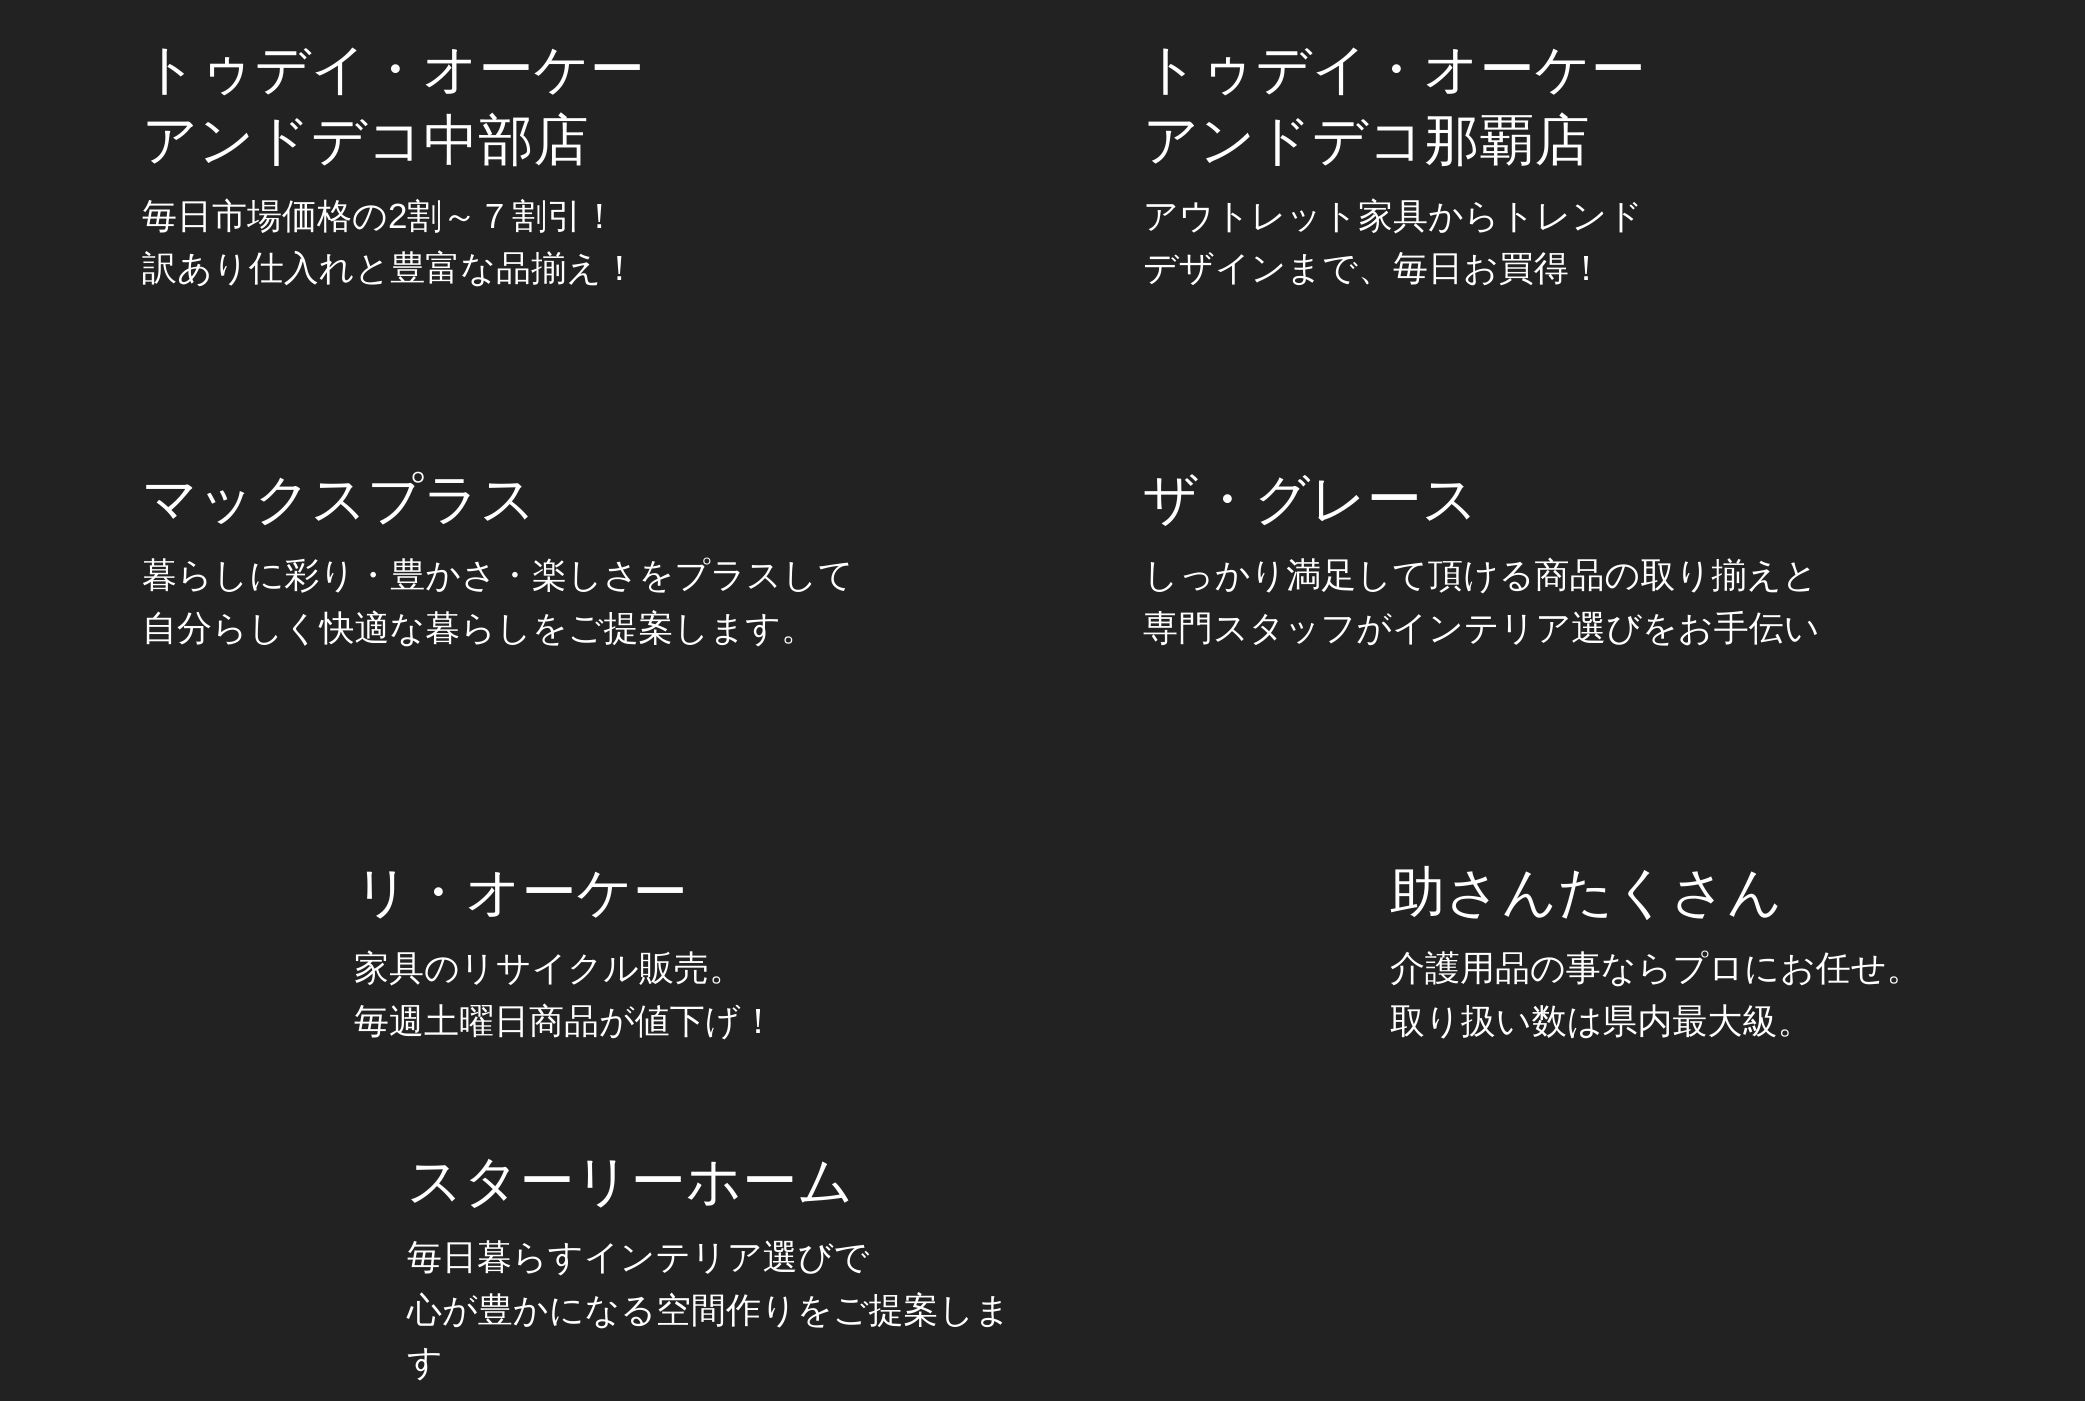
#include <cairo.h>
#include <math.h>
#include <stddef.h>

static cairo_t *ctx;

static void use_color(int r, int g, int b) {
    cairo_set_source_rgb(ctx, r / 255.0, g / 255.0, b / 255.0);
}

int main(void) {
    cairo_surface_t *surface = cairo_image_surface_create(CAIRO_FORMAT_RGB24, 2085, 1401);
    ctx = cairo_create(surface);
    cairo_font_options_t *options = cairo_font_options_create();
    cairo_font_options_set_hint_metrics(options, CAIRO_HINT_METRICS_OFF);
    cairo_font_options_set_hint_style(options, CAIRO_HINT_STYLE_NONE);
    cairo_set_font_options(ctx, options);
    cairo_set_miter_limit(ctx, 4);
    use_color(34, 34, 34);
    cairo_paint(ctx);
    cairo_select_font_face(ctx, "WenQuanYi Zen Hei Medium", CAIRO_FONT_SLANT_NORMAL, CAIRO_FONT_WEIGHT_NORMAL);
    cairo_set_font_size(ctx, 55);
    use_color(255, 255, 255);
    cairo_move_to(ctx, 142, 88);
    cairo_show_text(ctx, "トゥデイ・オーケー");
    cairo_move_to(ctx, 142, 159);
    cairo_show_text(ctx, "アンドデコ中部店");
    cairo_set_font_size(ctx, 35);
    cairo_move_to(ctx, 142, 228);
    cairo_show_text(ctx, "毎日市場価格の");
    cairo_select_font_face(ctx, "Liberation Sans", CAIRO_FONT_SLANT_NORMAL, CAIRO_FONT_WEIGHT_NORMAL);
    cairo_move_to(ctx, 388, 228);
    cairo_show_text(ctx, "2");
    cairo_select_font_face(ctx, "WenQuanYi Zen Hei Medium", CAIRO_FONT_SLANT_NORMAL, CAIRO_FONT_WEIGHT_NORMAL);
    cairo_move_to(ctx, 407, 228);
    cairo_show_text(ctx, "割～７割引！");
    cairo_move_to(ctx, 142, 280);
    cairo_show_text(ctx, "訳あり仕入れと豊富な品揃え！");
    cairo_set_font_size(ctx, 55);
    cairo_move_to(ctx, 1143, 88);
    cairo_show_text(ctx, "トゥデイ・オーケー");
    cairo_move_to(ctx, 1143, 159);
    cairo_show_text(ctx, "アンドデコ那覇店");
    cairo_set_font_size(ctx, 35);
    cairo_move_to(ctx, 1143, 228);
    cairo_show_text(ctx, "アウトレット家具からトレンド");
    cairo_move_to(ctx, 1143, 280);
    cairo_show_text(ctx, "デザインまで、毎日お買得！");
    cairo_set_font_size(ctx, 55);
    cairo_move_to(ctx, 142, 518);
    cairo_show_text(ctx, "マックスプラス");
    cairo_set_font_size(ctx, 35);
    cairo_move_to(ctx, 142, 587);
    cairo_show_text(ctx, "暮らしに彩り・豊かさ・楽しさをプラスして");
    cairo_move_to(ctx, 142, 640);
    cairo_show_text(ctx, "自分らしく快適な暮らしをご提案します。");
    cairo_set_font_size(ctx, 55);
    cairo_move_to(ctx, 1143, 518);
    cairo_show_text(ctx, "ザ・グレース");
    cairo_set_font_size(ctx, 35);
    cairo_move_to(ctx, 1143, 587);
    cairo_show_text(ctx, "しっかり満足して頂ける商品の取り揃えと");
    cairo_move_to(ctx, 1143, 640);
    cairo_show_text(ctx, "専門スタッフがインテリア選びをお手伝い");
    cairo_set_font_size(ctx, 55);
    cairo_move_to(ctx, 354, 911);
    cairo_show_text(ctx, "リ・オーケー");
    cairo_set_font_size(ctx, 35);
    cairo_move_to(ctx, 354, 980);
    cairo_show_text(ctx, "家具のリサイクル販売。");
    cairo_move_to(ctx, 354, 1033);
    cairo_show_text(ctx, "毎週土曜日商品が値下げ！");
    cairo_set_font_size(ctx, 55);
    cairo_move_to(ctx, 1390, 911);
    cairo_show_text(ctx, "助さんたくさん");
    cairo_set_font_size(ctx, 35);
    cairo_move_to(ctx, 1390, 980);
    cairo_show_text(ctx, "介護用品の事ならプロにお任せ。");
    cairo_move_to(ctx, 1390, 1033);
    cairo_show_text(ctx, "取り扱い数は県内最大級。");
    cairo_set_font_size(ctx, 55);
    cairo_move_to(ctx, 407, 1200);
    cairo_show_text(ctx, "スターリーホーム");
    cairo_set_font_size(ctx, 35);
    cairo_move_to(ctx, 407, 1269);
    cairo_show_text(ctx, "毎日暮らすインテリア選びで");
    cairo_move_to(ctx, 407, 1322);
    cairo_show_text(ctx, "心が豊かになる空間作りをご提案しま");
    cairo_move_to(ctx, 407, 1374);
    cairo_show_text(ctx, "す");
    cairo_surface_write_to_png(surface, "result.png");
    cairo_font_options_destroy(options);
    cairo_destroy(ctx);
    cairo_surface_destroy(surface);
    return 0;
}
